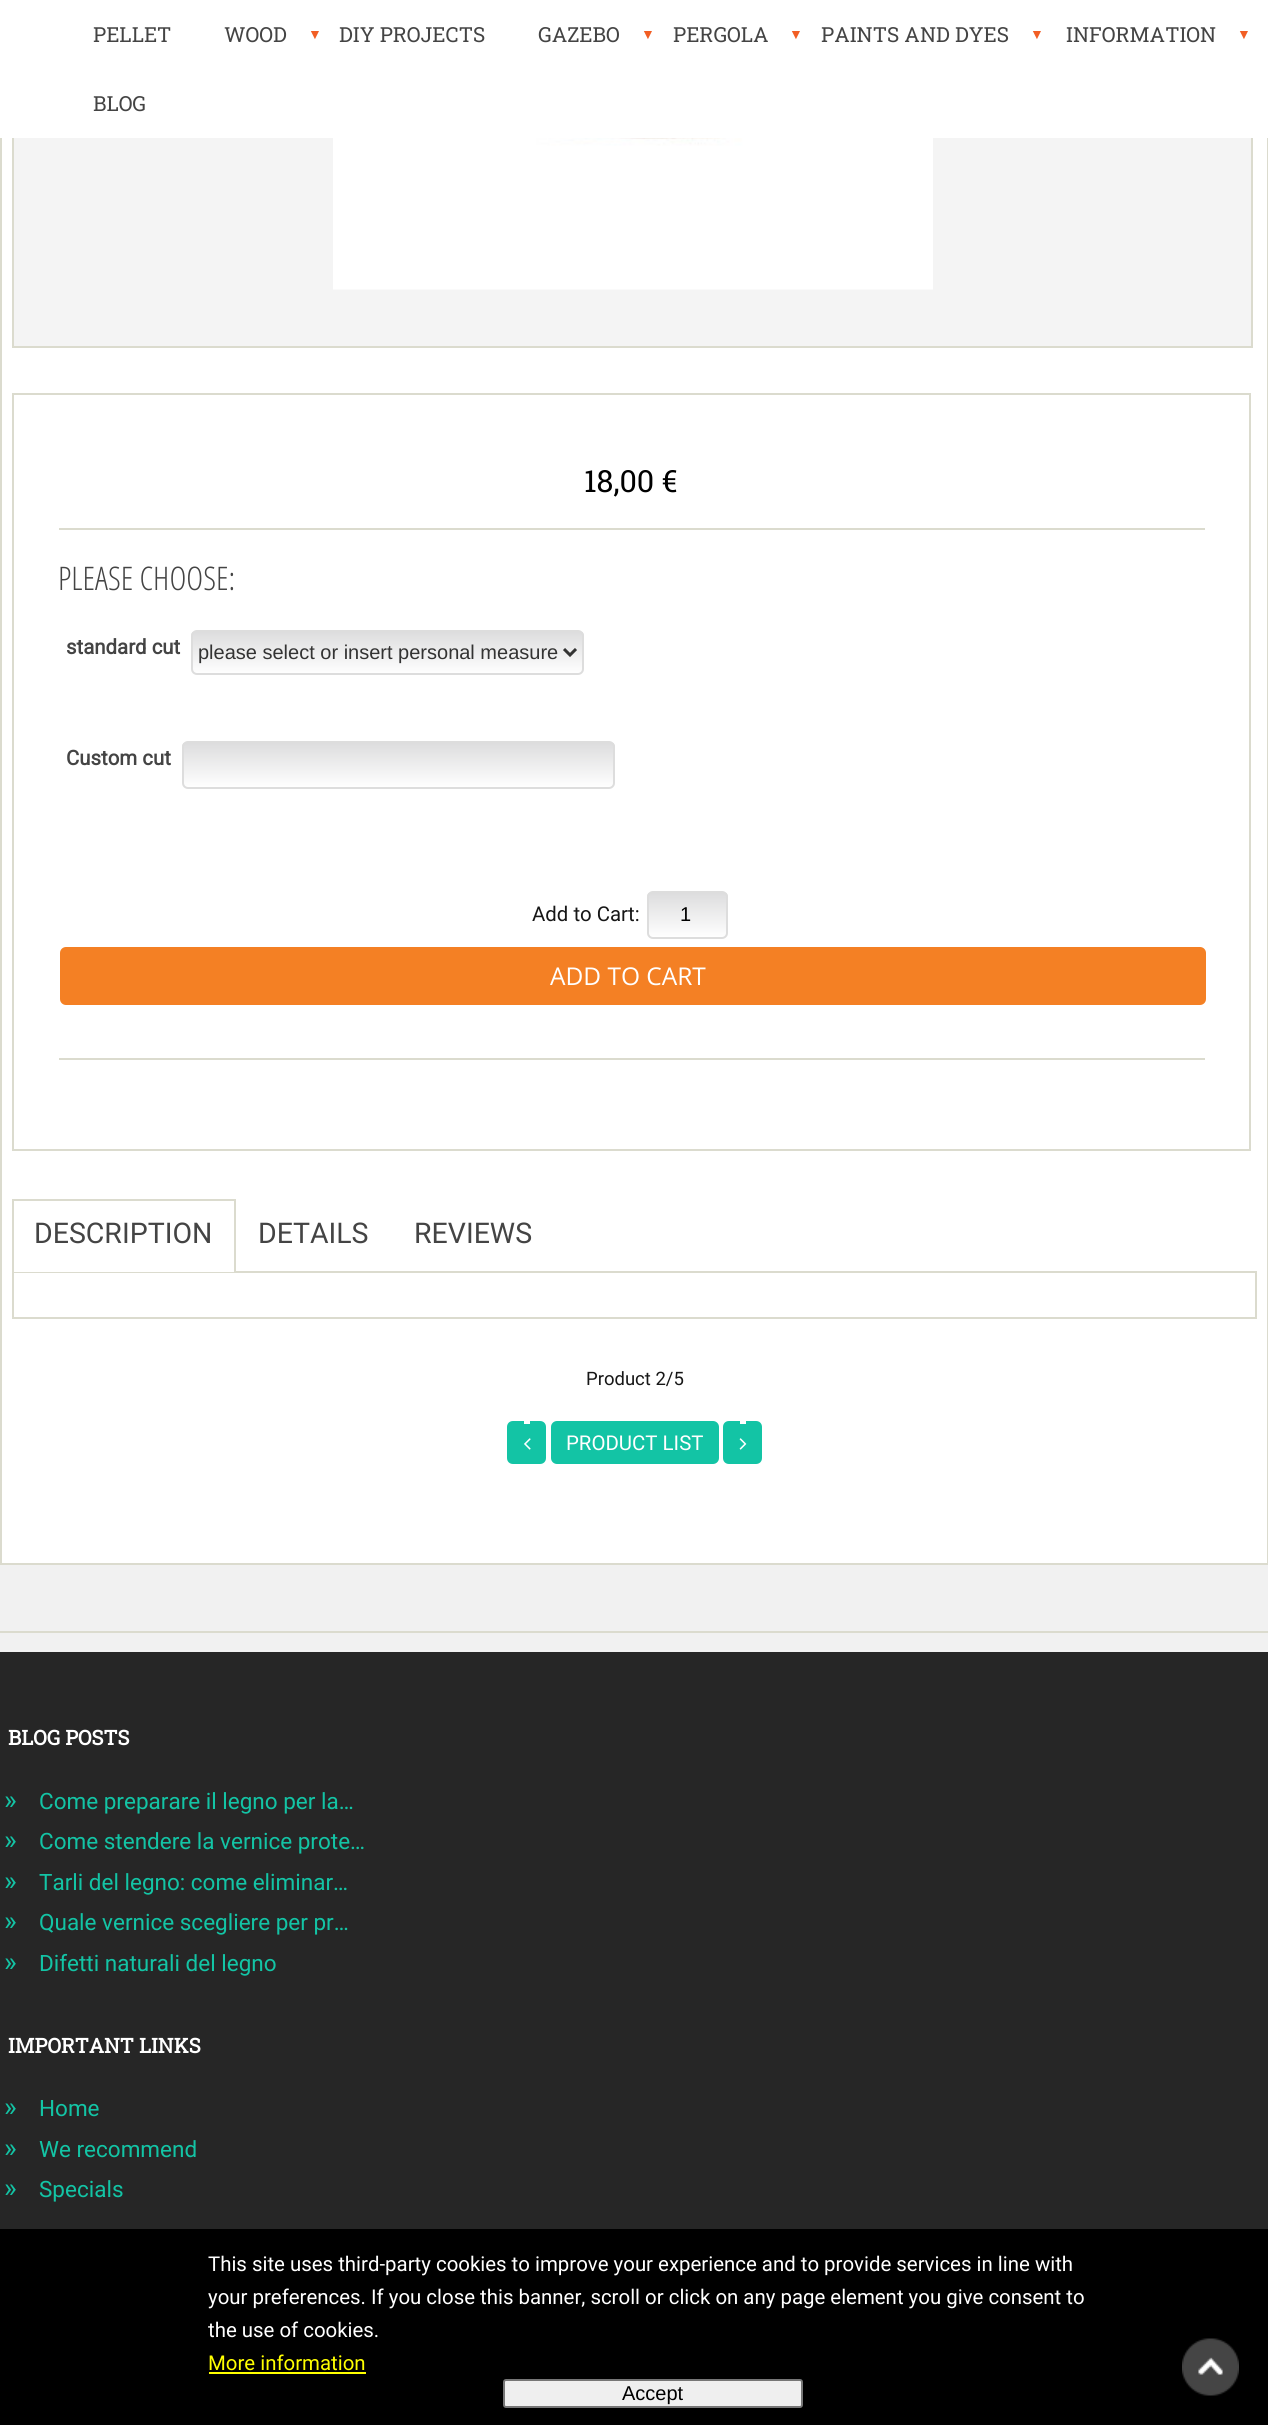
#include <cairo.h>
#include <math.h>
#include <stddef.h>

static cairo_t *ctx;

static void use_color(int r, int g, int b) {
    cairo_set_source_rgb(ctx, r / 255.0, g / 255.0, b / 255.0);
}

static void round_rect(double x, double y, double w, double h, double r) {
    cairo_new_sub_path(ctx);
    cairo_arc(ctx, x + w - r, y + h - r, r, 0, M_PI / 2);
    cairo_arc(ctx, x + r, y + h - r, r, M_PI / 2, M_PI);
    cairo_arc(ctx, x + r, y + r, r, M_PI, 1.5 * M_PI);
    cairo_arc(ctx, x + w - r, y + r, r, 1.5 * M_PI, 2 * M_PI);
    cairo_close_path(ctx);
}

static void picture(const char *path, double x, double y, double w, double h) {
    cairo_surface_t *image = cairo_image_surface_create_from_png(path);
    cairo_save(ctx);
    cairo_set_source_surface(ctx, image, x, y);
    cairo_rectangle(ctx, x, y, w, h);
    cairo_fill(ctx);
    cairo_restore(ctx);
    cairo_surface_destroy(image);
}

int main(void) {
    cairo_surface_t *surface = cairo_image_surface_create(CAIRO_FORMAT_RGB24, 1268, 2425);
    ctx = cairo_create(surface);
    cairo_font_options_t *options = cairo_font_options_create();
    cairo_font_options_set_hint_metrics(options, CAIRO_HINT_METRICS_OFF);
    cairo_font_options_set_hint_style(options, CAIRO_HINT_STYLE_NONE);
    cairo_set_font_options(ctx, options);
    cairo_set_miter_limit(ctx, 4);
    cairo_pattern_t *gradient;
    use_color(241, 241, 241);
    cairo_paint(ctx);
    use_color(255, 255, 255);
    cairo_rectangle(ctx, 2, 138, 1265, 1425);
    cairo_fill(ctx);
    cairo_rectangle(ctx, 1, -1, 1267, 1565);
    use_color(219, 219, 206);
    cairo_stroke(ctx);
    use_color(244, 244, 244);
    cairo_rectangle(ctx, 14, 138, 1237, 208);
    cairo_fill(ctx);
    cairo_rectangle(ctx, 13, -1, 1239, 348);
    use_color(219, 219, 206);
    cairo_stroke(ctx);
    use_color(255, 255, 255);
    cairo_rectangle(ctx, 0, 0, 1268, 138);
    cairo_fill(ctx);
    cairo_select_font_face(ctx, "Roboto Slab", CAIRO_FONT_SLANT_NORMAL, CAIRO_FONT_WEIGHT_NORMAL);
    cairo_set_font_size(ctx, 20.75);
    use_color(68, 68, 68);
    cairo_move_to(ctx, 93, 42);
    cairo_show_text(ctx, "PELLET");
    cairo_move_to(ctx, 224, 42);
    cairo_show_text(ctx, "WOOD");
    cairo_select_font_face(ctx, "Liberation Serif", CAIRO_FONT_SLANT_ITALIC, CAIRO_FONT_WEIGHT_NORMAL);
    cairo_set_font_size(ctx, 14);
    use_color(242, 94, 36);
    cairo_move_to(ctx, 308, 39);
    cairo_show_text(ctx, "▼");
    cairo_select_font_face(ctx, "Roboto Slab", CAIRO_FONT_SLANT_NORMAL, CAIRO_FONT_WEIGHT_NORMAL);
    cairo_set_font_size(ctx, 20.75);
    use_color(68, 68, 68);
    cairo_move_to(ctx, 339, 42);
    cairo_show_text(ctx, "DIY PROJECTS");
    cairo_move_to(ctx, 538, 42);
    cairo_show_text(ctx, "GAZEBO");
    cairo_select_font_face(ctx, "Liberation Serif", CAIRO_FONT_SLANT_ITALIC, CAIRO_FONT_WEIGHT_NORMAL);
    cairo_set_font_size(ctx, 14);
    use_color(242, 94, 36);
    cairo_move_to(ctx, 641, 39);
    cairo_show_text(ctx, "▼");
    cairo_select_font_face(ctx, "Roboto Slab", CAIRO_FONT_SLANT_NORMAL, CAIRO_FONT_WEIGHT_NORMAL);
    cairo_set_font_size(ctx, 20.75);
    use_color(68, 68, 68);
    cairo_move_to(ctx, 673, 42);
    cairo_show_text(ctx, "PERGOLA");
    cairo_select_font_face(ctx, "Liberation Serif", CAIRO_FONT_SLANT_ITALIC, CAIRO_FONT_WEIGHT_NORMAL);
    cairo_set_font_size(ctx, 14);
    use_color(242, 94, 36);
    cairo_move_to(ctx, 789, 39);
    cairo_show_text(ctx, "▼");
    cairo_select_font_face(ctx, "Roboto Slab", CAIRO_FONT_SLANT_NORMAL, CAIRO_FONT_WEIGHT_NORMAL);
    cairo_set_font_size(ctx, 20.75);
    use_color(68, 68, 68);
    cairo_move_to(ctx, 821, 42);
    cairo_show_text(ctx, "PAINTS AND DYES");
    cairo_select_font_face(ctx, "Liberation Serif", CAIRO_FONT_SLANT_ITALIC, CAIRO_FONT_WEIGHT_NORMAL);
    cairo_set_font_size(ctx, 14);
    use_color(242, 94, 36);
    cairo_move_to(ctx, 1030, 39);
    cairo_show_text(ctx, "▼");
    cairo_select_font_face(ctx, "Roboto Slab", CAIRO_FONT_SLANT_NORMAL, CAIRO_FONT_WEIGHT_NORMAL);
    cairo_set_font_size(ctx, 20.75);
    use_color(68, 68, 68);
    cairo_move_to(ctx, 1066, 42);
    cairo_show_text(ctx, "INFORMATION");
    cairo_select_font_face(ctx, "Liberation Serif", CAIRO_FONT_SLANT_ITALIC, CAIRO_FONT_WEIGHT_NORMAL);
    cairo_set_font_size(ctx, 14);
    use_color(242, 94, 36);
    cairo_move_to(ctx, 1237, 39);
    cairo_show_text(ctx, "▼");
    cairo_select_font_face(ctx, "Roboto Slab", CAIRO_FONT_SLANT_NORMAL, CAIRO_FONT_WEIGHT_NORMAL);
    cairo_set_font_size(ctx, 20.75);
    use_color(68, 68, 68);
    cairo_move_to(ctx, 93, 111);
    cairo_show_text(ctx, "BLOG");
    picture("img1.png", 333, 138, 600, 152);
    cairo_rectangle(ctx, 13, 394, 1237, 756);
    use_color(219, 219, 206);
    cairo_stroke(ctx);
    cairo_rectangle(ctx, 59, 528, 1146, 2);
    cairo_fill(ctx);
    cairo_set_font_size(ctx, 30.5);
    use_color(0, 0, 0);
    cairo_move_to(ctx, 584, 492);
    cairo_show_text(ctx, "18,00 €");
    cairo_select_font_face(ctx, "Open Sans Condensed Light", CAIRO_FONT_SLANT_NORMAL, CAIRO_FONT_WEIGHT_NORMAL);
    cairo_set_font_size(ctx, 32.5);
    use_color(68, 68, 68);
    cairo_move_to(ctx, 58, 590);
    cairo_show_text(ctx, "PLEASE CHOOSE:");
    cairo_select_font_face(ctx, "Roboto", CAIRO_FONT_SLANT_NORMAL, CAIRO_FONT_WEIGHT_BOLD);
    cairo_set_font_size(ctx, 20.4);
    cairo_move_to(ctx, 66, 654);
    cairo_show_text(ctx, "standard cut");
    cairo_save(ctx);
    round_rect(191, 630, 393, 45, 6);
    cairo_clip(ctx);
    gradient = cairo_pattern_create_linear(387, 632, 387, 674);
    cairo_pattern_add_color_stop_rgba(gradient, 0, 0.867, 0.867, 0.871, 1);
    cairo_pattern_add_color_stop_rgba(gradient, 1, 1, 1, 1, 1);
    cairo_set_source(ctx, gradient);
    cairo_pattern_destroy(gradient);
    cairo_rectangle(ctx, 191, 632, 393, 42);
    cairo_fill(ctx);
    cairo_restore(ctx);
    round_rect(192, 631, 391, 43, 5);
    use_color(221, 221, 221);
    cairo_stroke(ctx);
    cairo_new_path(ctx);
    cairo_move_to(ctx, 564, 649);
    cairo_line_to(ctx, 570, 655);
    cairo_line_to(ctx, 576, 649);
    use_color(51, 51, 51);
    cairo_set_line_width(ctx, 3);
    cairo_stroke(ctx);
    cairo_select_font_face(ctx, "Liberation Sans", CAIRO_FONT_SLANT_NORMAL, CAIRO_FONT_WEIGHT_NORMAL);
    cairo_set_font_size(ctx, 20);
    cairo_move_to(ctx, 198, 659);
    cairo_show_text(ctx, "please select or insert personal measure");
    cairo_select_font_face(ctx, "Roboto", CAIRO_FONT_SLANT_NORMAL, CAIRO_FONT_WEIGHT_BOLD);
    cairo_set_font_size(ctx, 20.4);
    use_color(68, 68, 68);
    cairo_move_to(ctx, 66, 765);
    cairo_show_text(ctx, "Custom cut");
    cairo_save(ctx);
    round_rect(182, 741, 433, 48, 6);
    cairo_clip(ctx);
    gradient = cairo_pattern_create_linear(398, 743, 398, 788);
    cairo_pattern_add_color_stop_rgba(gradient, 0, 0.867, 0.867, 0.871, 1);
    cairo_pattern_add_color_stop_rgba(gradient, 1, 1, 1, 1, 1);
    cairo_set_source(ctx, gradient);
    cairo_pattern_destroy(gradient);
    cairo_rectangle(ctx, 182, 743, 433, 45);
    cairo_fill(ctx);
    cairo_restore(ctx);
    round_rect(183, 742, 431, 46, 5);
    use_color(221, 221, 221);
    cairo_set_line_width(ctx, 2);
    cairo_stroke(ctx);
    use_color(219, 219, 206);
    cairo_rectangle(ctx, 59, 1058, 1146, 2);
    cairo_fill(ctx);
    cairo_select_font_face(ctx, "Roboto", CAIRO_FONT_SLANT_NORMAL, CAIRO_FONT_WEIGHT_NORMAL);
    use_color(23, 23, 23);
    cairo_move_to(ctx, 532, 921);
    cairo_show_text(ctx, "Add to Cart:");
    cairo_save(ctx);
    round_rect(647, 891, 81, 48, 6);
    cairo_clip(ctx);
    gradient = cairo_pattern_create_linear(687, 893, 687, 938);
    cairo_pattern_add_color_stop_rgba(gradient, 0, 0.867, 0.867, 0.871, 1);
    cairo_pattern_add_color_stop_rgba(gradient, 1, 1, 1, 1, 1);
    cairo_set_source(ctx, gradient);
    cairo_pattern_destroy(gradient);
    cairo_rectangle(ctx, 647, 893, 81, 45);
    cairo_fill(ctx);
    cairo_restore(ctx);
    round_rect(648, 892, 79, 46, 5);
    use_color(221, 221, 221);
    cairo_stroke(ctx);
    cairo_select_font_face(ctx, "Liberation Sans", CAIRO_FONT_SLANT_NORMAL, CAIRO_FONT_WEIGHT_NORMAL);
    cairo_set_font_size(ctx, 20);
    use_color(0, 0, 0);
    cairo_move_to(ctx, 680, 921);
    cairo_show_text(ctx, "1");
    use_color(244, 128, 36);
    round_rect(60, 947, 1146, 58, 6);
    cairo_fill(ctx);
    cairo_select_font_face(ctx, "Open Sans", CAIRO_FONT_SLANT_NORMAL, CAIRO_FONT_WEIGHT_NORMAL);
    cairo_set_font_size(ctx, 24.5);
    use_color(255, 255, 255);
    cairo_move_to(ctx, 550, 985);
    cairo_show_text(ctx, "ADD TO CART");
    cairo_rectangle(ctx, 13, 1272, 1243, 46);
    use_color(219, 219, 206);
    cairo_stroke(ctx);
    use_color(255, 255, 255);
    cairo_rectangle(ctx, 14, 1271, 220, 1);
    cairo_fill(ctx);
    use_color(219, 219, 206);
    cairo_rectangle(ctx, 12, 1199, 224, 2);
    cairo_fill(ctx);
    cairo_rectangle(ctx, 234, 1199, 2, 73);
    cairo_fill(ctx);
    cairo_rectangle(ctx, 12, 1199, 2, 73);
    cairo_fill(ctx);
    cairo_select_font_face(ctx, "Roboto", CAIRO_FONT_SLANT_NORMAL, CAIRO_FONT_WEIGHT_NORMAL);
    cairo_set_font_size(ctx, 28.5);
    use_color(68, 68, 68);
    cairo_move_to(ctx, 34, 1243);
    cairo_show_text(ctx, "DESCRIPTION");
    cairo_move_to(ctx, 258, 1243);
    cairo_show_text(ctx, "DETAILS");
    cairo_move_to(ctx, 414, 1243);
    cairo_show_text(ctx, "REVIEWS");
    cairo_set_font_size(ctx, 18.5);
    use_color(23, 23, 23);
    cairo_move_to(ctx, 586, 1385);
    cairo_show_text(ctx, "Product 2/5");
    use_color(19, 196, 165);
    cairo_new_path(ctx);
    cairo_move_to(ctx, 513, 1421);
    cairo_line_to(ctx, 524, 1421);
    cairo_line_to(ctx, 524, 1464);
    cairo_line_to(ctx, 513, 1464);
    cairo_curve_to(ctx, 509.5, 1464, 507, 1461.5, 507, 1458);
    cairo_line_to(ctx, 507, 1427);
    cairo_curve_to(ctx, 507, 1423.5, 509.5, 1421, 513, 1421);
    cairo_close_path(ctx);
    cairo_fill(ctx);
    cairo_rectangle(ctx, 524, 1424, 6, 40);
    cairo_fill(ctx);
    cairo_new_path(ctx);
    cairo_move_to(ctx, 530, 1421);
    cairo_line_to(ctx, 540, 1421);
    cairo_curve_to(ctx, 543.5, 1421, 546, 1423.5, 546, 1427);
    cairo_line_to(ctx, 546, 1458);
    cairo_curve_to(ctx, 546, 1461.5, 543.5, 1464, 540, 1464);
    cairo_line_to(ctx, 530, 1464);
    cairo_close_path(ctx);
    cairo_fill(ctx);
    picture("img2.png", 524, 1438, 7, 12);
    round_rect(551, 1421, 168, 43, 6);
    cairo_fill(ctx);
    cairo_set_font_size(ctx, 20.4);
    use_color(255, 255, 255);
    cairo_move_to(ctx, 566, 1450);
    cairo_show_text(ctx, "PRODUCT LIST");
    use_color(19, 196, 165);
    cairo_new_path(ctx);
    cairo_move_to(ctx, 729, 1421);
    cairo_line_to(ctx, 740, 1421);
    cairo_line_to(ctx, 740, 1464);
    cairo_line_to(ctx, 729, 1464);
    cairo_curve_to(ctx, 725.5, 1464, 723, 1461.5, 723, 1458);
    cairo_line_to(ctx, 723, 1427);
    cairo_curve_to(ctx, 723, 1423.5, 725.5, 1421, 729, 1421);
    cairo_close_path(ctx);
    cairo_fill(ctx);
    cairo_rectangle(ctx, 740, 1424, 6, 40);
    cairo_fill(ctx);
    cairo_new_path(ctx);
    cairo_move_to(ctx, 746, 1421);
    cairo_line_to(ctx, 756, 1421);
    cairo_curve_to(ctx, 759.5, 1421, 762, 1423.5, 762, 1427);
    cairo_line_to(ctx, 762, 1458);
    cairo_curve_to(ctx, 762, 1461.5, 759.5, 1464, 756, 1464);
    cairo_line_to(ctx, 746, 1464);
    cairo_close_path(ctx);
    cairo_fill(ctx);
    picture("img3.png", 739, 1438, 8, 12);
    use_color(219, 219, 206);
    cairo_rectangle(ctx, 0, 1631, 1268, 2);
    cairo_fill(ctx);
    use_color(38, 38, 38);
    cairo_rectangle(ctx, 0, 1652, 1268, 577);
    cairo_fill(ctx);
    cairo_select_font_face(ctx, "Roboto Slab", CAIRO_FONT_SLANT_NORMAL, CAIRO_FONT_WEIGHT_BOLD);
    use_color(255, 255, 255);
    cairo_move_to(ctx, 8, 1745);
    cairo_show_text(ctx, "BLOG POSTS");
    cairo_select_font_face(ctx, "Roboto", CAIRO_FONT_SLANT_NORMAL, CAIRO_FONT_WEIGHT_NORMAL);
    cairo_set_font_size(ctx, 27);
    use_color(19, 196, 165);
    cairo_move_to(ctx, 4, 1809);
    cairo_show_text(ctx, "»");
    cairo_set_font_size(ctx, 22.5);
    cairo_move_to(ctx, 39, 1809);
    cairo_show_text(ctx, "Come preparare il legno per la…");
    cairo_set_font_size(ctx, 27);
    cairo_move_to(ctx, 4, 1849);
    cairo_show_text(ctx, "»");
    cairo_set_font_size(ctx, 22.5);
    cairo_move_to(ctx, 39, 1849);
    cairo_show_text(ctx, "Come stendere la vernice prote…");
    cairo_set_font_size(ctx, 27);
    cairo_move_to(ctx, 4, 1890);
    cairo_show_text(ctx, "»");
    cairo_set_font_size(ctx, 22.5);
    cairo_move_to(ctx, 39, 1890);
    cairo_show_text(ctx, "Tarli del legno: come eliminar…");
    cairo_set_font_size(ctx, 27);
    cairo_move_to(ctx, 4, 1930);
    cairo_show_text(ctx, "»");
    cairo_set_font_size(ctx, 22.5);
    cairo_move_to(ctx, 39, 1930);
    cairo_show_text(ctx, "Quale vernice scegliere per pr…");
    cairo_set_font_size(ctx, 27);
    cairo_move_to(ctx, 4, 1971);
    cairo_show_text(ctx, "»");
    cairo_set_font_size(ctx, 22.5);
    cairo_move_to(ctx, 39, 1971);
    cairo_show_text(ctx, "Difetti naturali del legno");
    cairo_select_font_face(ctx, "Roboto Slab", CAIRO_FONT_SLANT_NORMAL, CAIRO_FONT_WEIGHT_BOLD);
    cairo_set_font_size(ctx, 20.4);
    use_color(255, 255, 255);
    cairo_move_to(ctx, 8, 2053);
    cairo_show_text(ctx, "IMPORTANT LINKS");
    cairo_select_font_face(ctx, "Roboto", CAIRO_FONT_SLANT_NORMAL, CAIRO_FONT_WEIGHT_NORMAL);
    cairo_set_font_size(ctx, 27);
    use_color(19, 196, 165);
    cairo_move_to(ctx, 4, 2116);
    cairo_show_text(ctx, "»");
    cairo_set_font_size(ctx, 22.5);
    cairo_move_to(ctx, 39, 2116);
    cairo_show_text(ctx, "Home");
    cairo_set_font_size(ctx, 27);
    cairo_move_to(ctx, 4, 2157);
    cairo_show_text(ctx, "»");
    cairo_set_font_size(ctx, 22.5);
    cairo_move_to(ctx, 39, 2157);
    cairo_show_text(ctx, "We recommend");
    cairo_set_font_size(ctx, 27);
    cairo_move_to(ctx, 4, 2197);
    cairo_show_text(ctx, "»");
    cairo_set_font_size(ctx, 22.5);
    cairo_move_to(ctx, 39, 2197);
    cairo_show_text(ctx, "Specials");
    use_color(0, 0, 0);
    cairo_rectangle(ctx, 0, 2229, 1268, 196);
    cairo_fill(ctx);
    cairo_set_font_size(ctx, 20.4);
    use_color(255, 255, 255);
    cairo_move_to(ctx, 208, 2271);
    cairo_show_text(ctx, "This site uses third-party cookies to improve your experience and to provide services in line with");
    cairo_move_to(ctx, 208, 2304);
    cairo_show_text(ctx, "your preferences. If you close this banner, scroll or click on any page element you give consent to");
    cairo_move_to(ctx, 208, 2337);
    cairo_show_text(ctx, "the use of cookies.");
    use_color(255, 255, 0);
    cairo_move_to(ctx, 208, 2370);
    cairo_show_text(ctx, "More information");
    cairo_rectangle(ctx, 209, 2372, 157, 2);
    cairo_fill(ctx);
    use_color(239, 239, 239);
    round_rect(504, 2380, 298, 27, 2);
    cairo_fill_preserve(ctx);
    use_color(118, 118, 118);
    cairo_stroke(ctx);
    cairo_select_font_face(ctx, "Liberation Sans", CAIRO_FONT_SLANT_NORMAL, CAIRO_FONT_WEIGHT_NORMAL);
    cairo_set_font_size(ctx, 20);
    use_color(0, 0, 0);
    cairo_move_to(ctx, 622, 2400);
    cairo_show_text(ctx, "Accept");
    picture("img4.png", 1182, 2338, 57, 58);
    cairo_surface_write_to_png(surface, "result.png");
    cairo_font_options_destroy(options);
    cairo_destroy(ctx);
    cairo_surface_destroy(surface);
    return 0;
}
